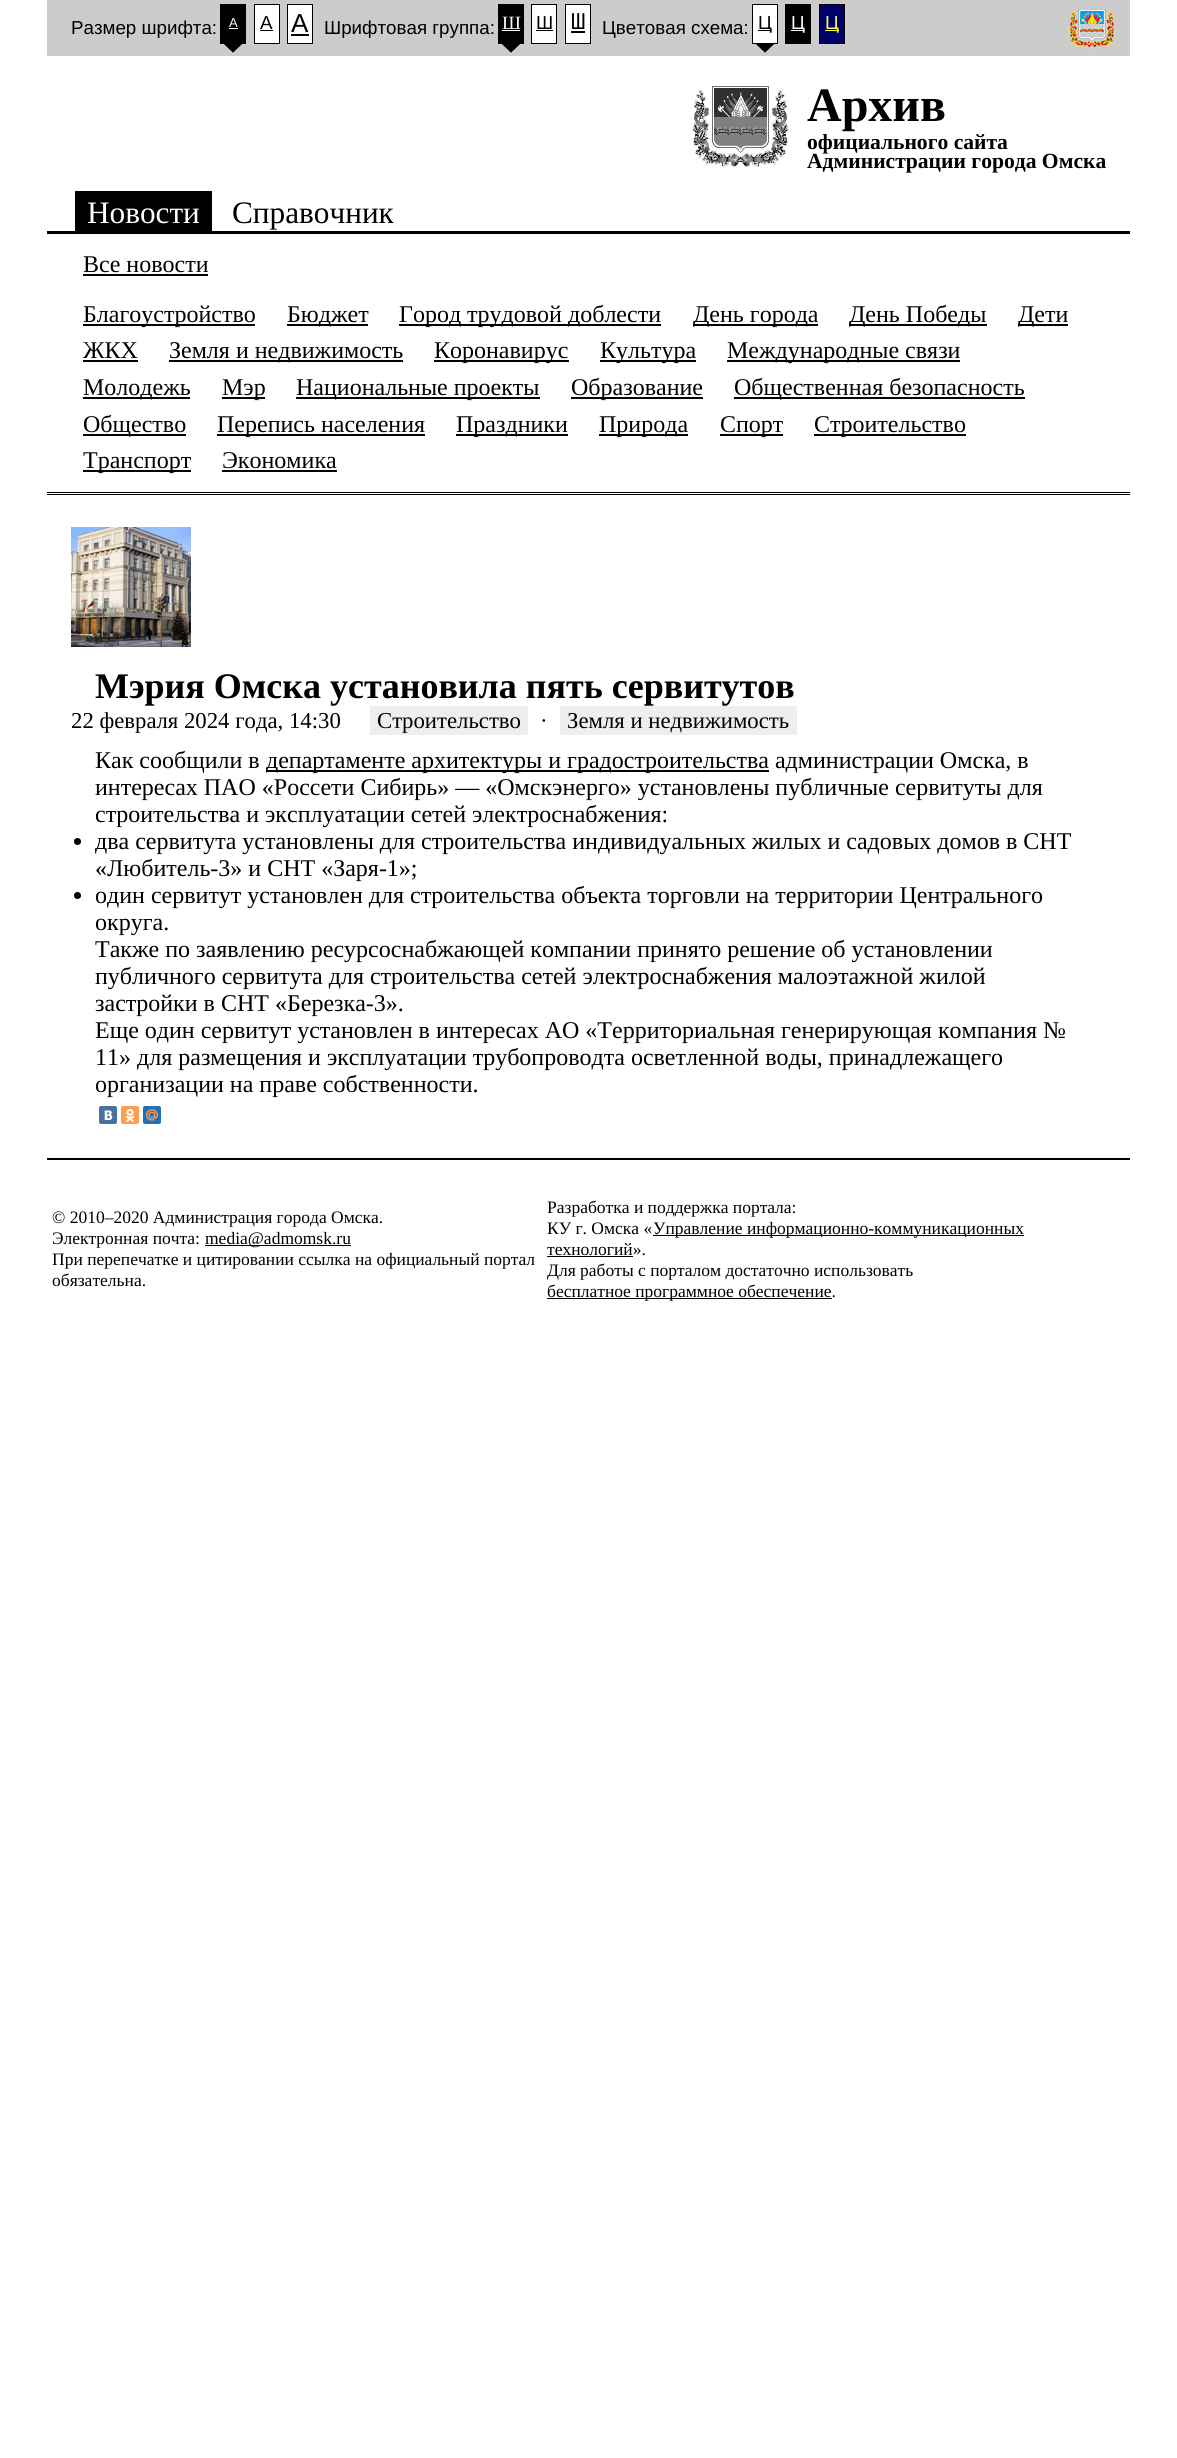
#include <cairo.h>
#include <math.h>
#include <stddef.h>

static cairo_t *ctx;

static void use_color(int r, int g, int b) {
    cairo_set_source_rgb(ctx, r / 255.0, g / 255.0, b / 255.0);
}

static void round_rect(double x, double y, double w, double h, double r) {
    cairo_new_sub_path(ctx);
    cairo_arc(ctx, x + w - r, y + h - r, r, 0, M_PI / 2);
    cairo_arc(ctx, x + r, y + h - r, r, M_PI / 2, M_PI);
    cairo_arc(ctx, x + r, y + r, r, M_PI, 1.5 * M_PI);
    cairo_arc(ctx, x + w - r, y + r, r, 1.5 * M_PI, 2 * M_PI);
    cairo_close_path(ctx);
}

static void picture(const char *path, double x, double y, double w, double h) {
    cairo_surface_t *image = cairo_image_surface_create_from_png(path);
    cairo_save(ctx);
    cairo_set_source_surface(ctx, image, x, y);
    cairo_rectangle(ctx, x, y, w, h);
    cairo_fill(ctx);
    cairo_restore(ctx);
    cairo_surface_destroy(image);
}

int main(void) {
    cairo_surface_t *surface = cairo_image_surface_create(CAIRO_FORMAT_RGB24, 1177, 2458);
    ctx = cairo_create(surface);
    cairo_font_options_t *options = cairo_font_options_create();
    cairo_font_options_set_hint_metrics(options, CAIRO_HINT_METRICS_OFF);
    cairo_font_options_set_hint_style(options, CAIRO_HINT_STYLE_NONE);
    cairo_set_font_options(ctx, options);
    cairo_set_miter_limit(ctx, 4);
    use_color(255, 255, 255);
    cairo_paint(ctx);
    use_color(204, 204, 204);
    cairo_rectangle(ctx, 47, 0, 1083, 56);
    cairo_fill(ctx);
    cairo_select_font_face(ctx, "Liberation Sans", CAIRO_FONT_SLANT_NORMAL, CAIRO_FONT_WEIGHT_NORMAL);
    cairo_set_font_size(ctx, 18.75);
    use_color(0, 0, 0);
    cairo_move_to(ctx, 71, 34);
    cairo_show_text(ctx, "Размер шрифта:");
    picture("img1.png", 224, 44, 18, 9);
    cairo_rectangle(ctx, 220, 4, 26, 40);
    cairo_fill(ctx);
    cairo_set_font_size(ctx, 13);
    use_color(255, 255, 255);
    cairo_move_to(ctx, 229, 27);
    cairo_show_text(ctx, "A");
    cairo_rectangle(ctx, 229, 28, 9, 1);
    cairo_fill(ctx);
    cairo_rectangle(ctx, 254.5, 4.5, 25, 39);
    cairo_fill_preserve(ctx);
    use_color(0, 0, 0);
    cairo_set_line_width(ctx, 1);
    cairo_stroke(ctx);
    cairo_set_font_size(ctx, 18.75);
    cairo_move_to(ctx, 260, 29);
    cairo_show_text(ctx, "A");
    cairo_rectangle(ctx, 260, 30, 13, 1);
    cairo_fill(ctx);
    use_color(255, 255, 255);
    cairo_rectangle(ctx, 287.5, 4.5, 25, 39);
    cairo_fill_preserve(ctx);
    use_color(0, 0, 0);
    cairo_stroke(ctx);
    cairo_set_font_size(ctx, 26);
    cairo_move_to(ctx, 291, 32);
    cairo_show_text(ctx, "A");
    cairo_rectangle(ctx, 291, 34, 18, 2);
    cairo_fill(ctx);
    cairo_set_font_size(ctx, 18.75);
    cairo_move_to(ctx, 324, 34);
    cairo_show_text(ctx, "Шрифтовая группа:");
    picture("img1.png", 502, 44, 18, 9);
    cairo_rectangle(ctx, 498, 4, 26, 40);
    cairo_fill(ctx);
    cairo_select_font_face(ctx, "Liberation Serif", CAIRO_FONT_SLANT_NORMAL, CAIRO_FONT_WEIGHT_NORMAL);
    use_color(255, 255, 255);
    cairo_move_to(ctx, 502, 29);
    cairo_show_text(ctx, "Ш");
    cairo_rectangle(ctx, 502, 30, 18, 1);
    cairo_fill(ctx);
    cairo_rectangle(ctx, 531.5, 4.5, 25, 39);
    cairo_fill_preserve(ctx);
    use_color(0, 0, 0);
    cairo_stroke(ctx);
    cairo_select_font_face(ctx, "Liberation Sans", CAIRO_FONT_SLANT_NORMAL, CAIRO_FONT_WEIGHT_NORMAL);
    cairo_move_to(ctx, 536, 29);
    cairo_show_text(ctx, "Ш");
    cairo_rectangle(ctx, 536, 30, 17, 1);
    cairo_fill(ctx);
    use_color(255, 255, 255);
    cairo_rectangle(ctx, 565.5, 4.5, 25, 39);
    cairo_fill_preserve(ctx);
    use_color(0, 0, 0);
    cairo_stroke(ctx);
    cairo_select_font_face(ctx, "Liberation Mono", CAIRO_FONT_SLANT_NORMAL, CAIRO_FONT_WEIGHT_NORMAL);
    cairo_set_font_size(ctx, 24);
    cairo_move_to(ctx, 571, 29);
    cairo_show_text(ctx, "Ш");
    cairo_rectangle(ctx, 571, 31, 14, 2);
    cairo_fill(ctx);
    cairo_select_font_face(ctx, "Liberation Sans", CAIRO_FONT_SLANT_NORMAL, CAIRO_FONT_WEIGHT_NORMAL);
    cairo_set_font_size(ctx, 18.75);
    cairo_move_to(ctx, 602, 34);
    cairo_show_text(ctx, "Цветовая схема:");
    picture("img1.png", 756, 44, 18, 9);
    use_color(255, 255, 255);
    cairo_rectangle(ctx, 752.5, 4.5, 25, 39);
    cairo_fill_preserve(ctx);
    use_color(0, 0, 0);
    cairo_stroke(ctx);
    cairo_rectangle(ctx, 758, 30, 14, 1);
    cairo_fill(ctx);
    cairo_move_to(ctx, 758, 29);
    cairo_show_text(ctx, "Ц");
    cairo_rectangle(ctx, 785, 4, 26, 40);
    cairo_fill(ctx);
    use_color(255, 255, 255);
    cairo_rectangle(ctx, 791, 30, 14, 1);
    cairo_fill(ctx);
    cairo_move_to(ctx, 791, 29);
    cairo_show_text(ctx, "Ц");
    use_color(0, 0, 102);
    cairo_rectangle(ctx, 819.5, 4.5, 25, 39);
    cairo_fill_preserve(ctx);
    use_color(0, 0, 0);
    cairo_stroke(ctx);
    use_color(255, 255, 85);
    cairo_rectangle(ctx, 825, 30, 14, 1);
    cairo_fill(ctx);
    cairo_move_to(ctx, 825, 29);
    cairo_show_text(ctx, "Ц");
    picture("img2.png", 1068, 9, 48, 40);
    picture("img3.png", 692, 86, 97, 81);
    cairo_select_font_face(ctx, "Liberation Serif", CAIRO_FONT_SLANT_NORMAL, CAIRO_FONT_WEIGHT_BOLD);
    cairo_set_font_size(ctx, 48);
    use_color(0, 0, 0);
    cairo_move_to(ctx, 807, 121);
    cairo_show_text(ctx, "Архив");
    cairo_set_font_size(ctx, 21.6);
    cairo_move_to(ctx, 807, 149);
    cairo_show_text(ctx, "официального сайта");
    cairo_move_to(ctx, 807, 168);
    cairo_show_text(ctx, "Администрации города Омска");
    cairo_rectangle(ctx, 47, 231, 1083, 3);
    cairo_fill(ctx);
    cairo_rectangle(ctx, 75, 191, 137, 40);
    cairo_fill(ctx);
    cairo_select_font_face(ctx, "Liberation Serif", CAIRO_FONT_SLANT_NORMAL, CAIRO_FONT_WEIGHT_NORMAL);
    cairo_set_font_size(ctx, 31.25);
    use_color(255, 255, 255);
    cairo_move_to(ctx, 87, 223);
    cairo_show_text(ctx, "Новости");
    use_color(0, 0, 0);
    cairo_move_to(ctx, 232, 223);
    cairo_show_text(ctx, "Справочник");
    cairo_rectangle(ctx, 47, 492, 1083, 1);
    cairo_fill(ctx);
    cairo_rectangle(ctx, 47, 494, 1083, 1);
    cairo_fill(ctx);
    cairo_set_font_size(ctx, 24);
    cairo_move_to(ctx, 83, 272);
    cairo_show_text(ctx, "Все новости");
    cairo_rectangle(ctx, 83, 274, 125, 2);
    cairo_fill(ctx);
    cairo_rectangle(ctx, 83, 324, 172, 2);
    cairo_fill(ctx);
    cairo_move_to(ctx, 83, 322);
    cairo_show_text(ctx, "Благоустройство");
    cairo_rectangle(ctx, 287, 324, 81, 2);
    cairo_fill(ctx);
    cairo_move_to(ctx, 287, 322);
    cairo_show_text(ctx, "Бюджет");
    cairo_rectangle(ctx, 399, 324, 262, 2);
    cairo_fill(ctx);
    cairo_move_to(ctx, 399, 322);
    cairo_show_text(ctx, "Город трудовой доблести");
    cairo_rectangle(ctx, 693, 324, 125, 2);
    cairo_fill(ctx);
    cairo_move_to(ctx, 693, 322);
    cairo_show_text(ctx, "День города");
    cairo_rectangle(ctx, 849, 324, 138, 2);
    cairo_fill(ctx);
    cairo_move_to(ctx, 849, 322);
    cairo_show_text(ctx, "День Победы");
    cairo_rectangle(ctx, 1018, 324, 50, 2);
    cairo_fill(ctx);
    cairo_move_to(ctx, 1018, 322);
    cairo_show_text(ctx, "Дети");
    cairo_move_to(ctx, 83, 358);
    cairo_show_text(ctx, "ЖКХ");
    cairo_rectangle(ctx, 83, 360, 55, 2);
    cairo_fill(ctx);
    cairo_rectangle(ctx, 169, 360, 234, 2);
    cairo_fill(ctx);
    cairo_move_to(ctx, 169, 358);
    cairo_show_text(ctx, "Земля и недвижимость");
    cairo_rectangle(ctx, 434, 360, 135, 2);
    cairo_fill(ctx);
    cairo_move_to(ctx, 434, 358);
    cairo_show_text(ctx, "Коронавирус");
    cairo_rectangle(ctx, 600, 360, 96, 2);
    cairo_fill(ctx);
    cairo_move_to(ctx, 600, 358);
    cairo_show_text(ctx, "Культура");
    cairo_rectangle(ctx, 727, 360, 233, 2);
    cairo_fill(ctx);
    cairo_move_to(ctx, 727, 358);
    cairo_show_text(ctx, "Международные связи");
    cairo_rectangle(ctx, 83, 397, 107, 2);
    cairo_fill(ctx);
    cairo_move_to(ctx, 83, 395);
    cairo_show_text(ctx, "Молодежь");
    cairo_rectangle(ctx, 222, 397, 43, 2);
    cairo_fill(ctx);
    cairo_move_to(ctx, 222, 395);
    cairo_show_text(ctx, "Мэр");
    cairo_rectangle(ctx, 296, 397, 244, 2);
    cairo_fill(ctx);
    cairo_move_to(ctx, 296, 395);
    cairo_show_text(ctx, "Национальные проекты");
    cairo_rectangle(ctx, 571, 397, 132, 2);
    cairo_fill(ctx);
    cairo_move_to(ctx, 571, 395);
    cairo_show_text(ctx, "Образование");
    cairo_rectangle(ctx, 734, 397, 291, 2);
    cairo_fill(ctx);
    cairo_move_to(ctx, 734, 395);
    cairo_show_text(ctx, "Общественная безопасность");
    cairo_rectangle(ctx, 83, 434, 103, 2);
    cairo_fill(ctx);
    cairo_move_to(ctx, 83, 432);
    cairo_show_text(ctx, "Общество");
    cairo_rectangle(ctx, 217, 434, 208, 2);
    cairo_fill(ctx);
    cairo_move_to(ctx, 217, 432);
    cairo_show_text(ctx, "Перепись населения");
    cairo_rectangle(ctx, 456, 434, 112, 2);
    cairo_fill(ctx);
    cairo_move_to(ctx, 456, 432);
    cairo_show_text(ctx, "Праздники");
    cairo_rectangle(ctx, 599, 434, 89, 2);
    cairo_fill(ctx);
    cairo_move_to(ctx, 599, 432);
    cairo_show_text(ctx, "Природа");
    cairo_rectangle(ctx, 720, 434, 63, 2);
    cairo_fill(ctx);
    cairo_move_to(ctx, 720, 432);
    cairo_show_text(ctx, "Спорт");
    cairo_rectangle(ctx, 814, 434, 152, 2);
    cairo_fill(ctx);
    cairo_move_to(ctx, 814, 432);
    cairo_show_text(ctx, "Строительство");
    cairo_rectangle(ctx, 83, 470, 108, 2);
    cairo_fill(ctx);
    cairo_move_to(ctx, 83, 468);
    cairo_show_text(ctx, "Транспорт");
    cairo_move_to(ctx, 222, 468);
    cairo_show_text(ctx, "Экономика");
    cairo_rectangle(ctx, 222, 470, 115, 2);
    cairo_fill(ctx);
    cairo_rectangle(ctx, 47, 1158, 1083, 2);
    cairo_fill(ctx);
    picture("img4.png", 71, 527, 120, 120);
    cairo_select_font_face(ctx, "Liberation Serif", CAIRO_FONT_SLANT_NORMAL, CAIRO_FONT_WEIGHT_BOLD);
    cairo_set_font_size(ctx, 36);
    cairo_move_to(ctx, 95, 698);
    cairo_show_text(ctx, "Мэрия Омска установила пять сервитутов");
    cairo_select_font_face(ctx, "Liberation Serif", CAIRO_FONT_SLANT_NORMAL, CAIRO_FONT_WEIGHT_NORMAL);
    cairo_set_font_size(ctx, 22.75);
    cairo_move_to(ctx, 71, 728);
    cairo_show_text(ctx, "22 февраля 2024 года, 14:30");
    use_color(238, 238, 238);
    cairo_rectangle(ctx, 370, 706, 158, 29);
    cairo_fill(ctx);
    use_color(0, 0, 0);
    cairo_move_to(ctx, 377, 728);
    cairo_show_text(ctx, "Строительство");
    cairo_move_to(ctx, 540, 728);
    cairo_show_text(ctx, "·");
    use_color(238, 238, 238);
    cairo_rectangle(ctx, 560, 706, 237, 29);
    cairo_fill(ctx);
    use_color(0, 0, 0);
    cairo_move_to(ctx, 567, 728);
    cairo_show_text(ctx, "Земля и недвижимость");
    cairo_set_font_size(ctx, 24);
    cairo_move_to(ctx, 95, 768);
    cairo_show_text(ctx, "Как сообщили в");
    cairo_rectangle(ctx, 266, 770, 503, 2);
    cairo_fill(ctx);
    cairo_move_to(ctx, 266, 768);
    cairo_show_text(ctx, "департаменте архитектуры и градостроительства администрации Омска, в");
    cairo_move_to(ctx, 95, 795);
    cairo_show_text(ctx, "интересах ПАО «Россети Сибирь» — «Омскэнерго» установлены публичные сервитуты для");
    cairo_move_to(ctx, 95, 822);
    cairo_show_text(ctx, "строительства и эксплуатации сетей электроснабжения:");
    cairo_new_path(ctx);
    cairo_arc(ctx, 77.5, 841.5, 3.5, 0, 2 * M_PI);
    cairo_fill(ctx);
    cairo_move_to(ctx, 95, 849);
    cairo_show_text(ctx, "два сервитута установлены для строительства индивидуальных жилых и садовых домов в СНТ");
    cairo_move_to(ctx, 95, 876);
    cairo_show_text(ctx, "«Любитель-3» и СНТ «Заря-1»;");
    cairo_new_path(ctx);
    cairo_arc(ctx, 77.5, 895.5, 3.5, 0, 2 * M_PI);
    cairo_fill(ctx);
    cairo_move_to(ctx, 95, 903);
    cairo_show_text(ctx, "один сервитут установлен для строительства объекта торговли на территории Центрального");
    cairo_move_to(ctx, 95, 930);
    cairo_show_text(ctx, "округа.");
    cairo_move_to(ctx, 95, 957);
    cairo_show_text(ctx, "Также по заявлению ресурсоснабжающей компании принято решение об установлении");
    cairo_move_to(ctx, 95, 984);
    cairo_show_text(ctx, "публичного сервитута для строительства сетей электроснабжения малоэтажной жилой");
    cairo_move_to(ctx, 95, 1011);
    cairo_show_text(ctx, "застройки в СНТ «Березка-3».");
    cairo_move_to(ctx, 95, 1038);
    cairo_show_text(ctx, "Еще один сервитут установлен в интересах АО «Территориальная генерирующая компания №");
    cairo_move_to(ctx, 95, 1065);
    cairo_show_text(ctx, "11» для размещения и эксплуатации трубопроводта осветленной воды, принадлежащего");
    cairo_move_to(ctx, 95, 1092);
    cairo_show_text(ctx, "организации на праве собственности.");
    use_color(72, 114, 158);
    round_rect(99, 1106, 18, 18, 2);
    cairo_fill(ctx);
    picture("img5.png", 104, 1110, 9, 10);
    use_color(255, 159, 77);
    round_rect(121, 1106, 18, 18, 2);
    cairo_fill(ctx);
    picture("img6.png", 126, 1109, 8, 13);
    use_color(34, 110, 183);
    round_rect(143, 1106, 18, 18, 2);
    cairo_fill(ctx);
    picture("img7.png", 146, 1109, 12, 12);
    cairo_set_font_size(ctx, 17.5);
    use_color(0, 0, 0);
    cairo_move_to(ctx, 52, 1223);
    cairo_show_text(ctx, "© 2010–2020 Администрация города Омска.");
    cairo_move_to(ctx, 52, 1244);
    cairo_show_text(ctx, "Электронная почта:");
    cairo_rectangle(ctx, 205, 1245, 146, 1);
    cairo_fill(ctx);
    cairo_move_to(ctx, 205, 1244);
    cairo_show_text(ctx, "media@admomsk.ru");
    cairo_move_to(ctx, 52, 1265);
    cairo_show_text(ctx, "При перепечатке и цитировании ссылка на официальный портал");
    cairo_move_to(ctx, 52, 1286);
    cairo_show_text(ctx, "обязательна.");
    cairo_move_to(ctx, 547, 1213);
    cairo_show_text(ctx, "Разработка и поддержка портала:");
    cairo_move_to(ctx, 547, 1234);
    cairo_show_text(ctx, "КУ г. Омска «");
    cairo_rectangle(ctx, 653, 1235, 371, 1);
    cairo_fill(ctx);
    cairo_move_to(ctx, 653, 1234);
    cairo_show_text(ctx, "Управление информационно-коммуникационных");
    cairo_move_to(ctx, 547, 1255);
    cairo_show_text(ctx, "технологий».");
    cairo_rectangle(ctx, 547, 1256, 86, 1);
    cairo_fill(ctx);
    cairo_move_to(ctx, 547, 1276);
    cairo_show_text(ctx, "Для работы с порталом достаточно использовать");
    cairo_rectangle(ctx, 547, 1298, 285, 1);
    cairo_fill(ctx);
    cairo_move_to(ctx, 547, 1297);
    cairo_show_text(ctx, "бесплатное программное обеспечение.");
    cairo_surface_write_to_png(surface, "result.png");
    cairo_font_options_destroy(options);
    cairo_destroy(ctx);
    cairo_surface_destroy(surface);
    return 0;
}
